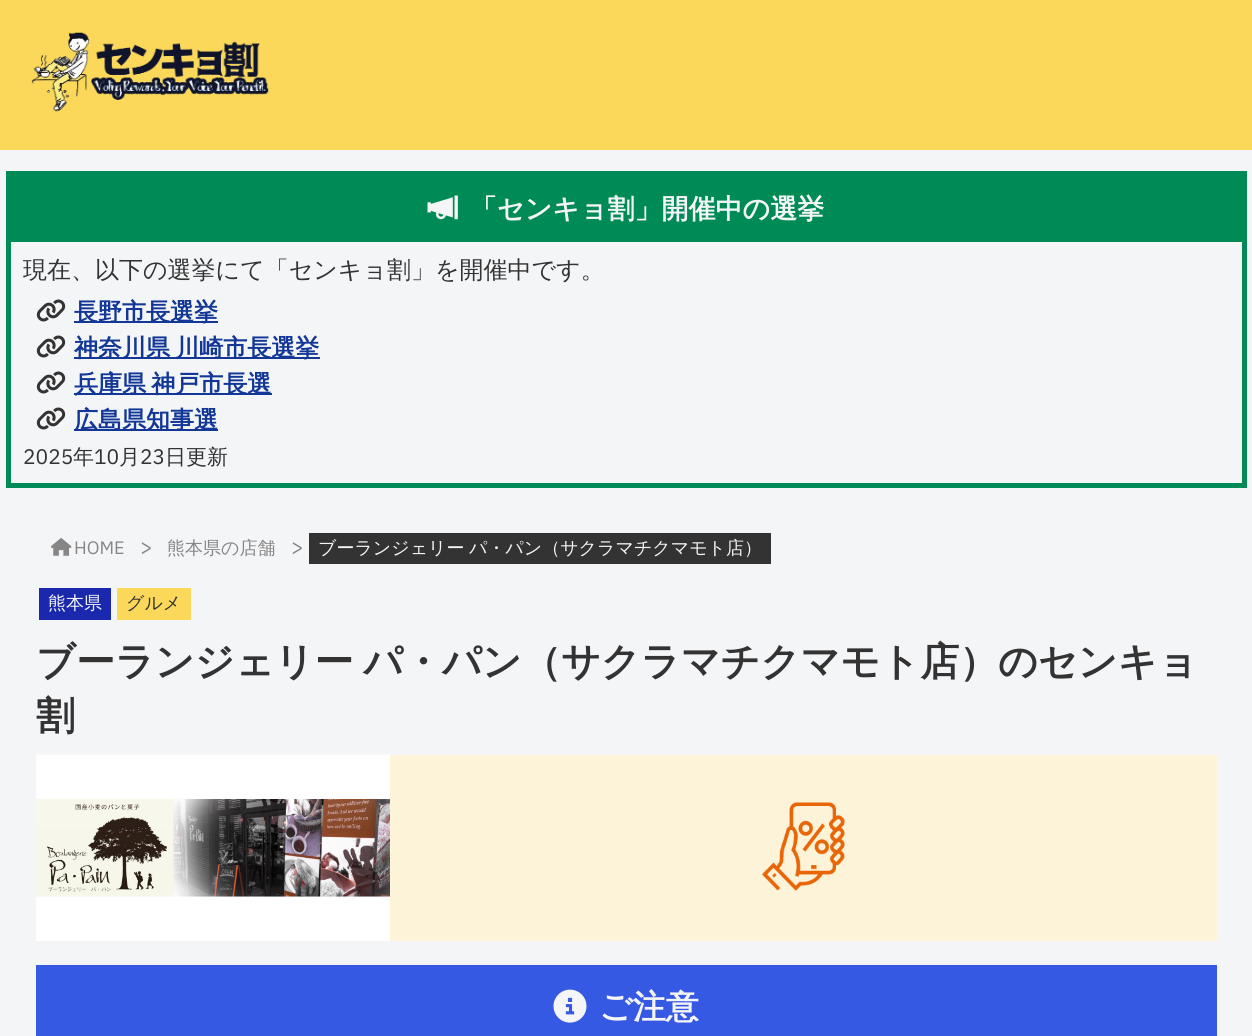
#include <cairo.h>
#include <math.h>
#include <stddef.h>

static cairo_t *ctx;

static void use_color(int r, int g, int b) {
    cairo_set_source_rgb(ctx, r / 255.0, g / 255.0, b / 255.0);
}

static void spaced_text(double x, double y, const char *s, double letter, double word) {
    cairo_move_to(ctx, x, y);
    while (*s) {
        char ch[5] = {0};
        int n = 0;
        do ch[n++] = *s++; while ((*s & 0xC0) == 0x80);
        cairo_show_text(ctx, ch);
        cairo_rel_move_to(ctx, letter + word * (*ch == ' '), 0);
    }
}

static void picture(const char *path, double x, double y, double w, double h) {
    cairo_surface_t *image = cairo_image_surface_create_from_png(path);
    cairo_save(ctx);
    cairo_set_source_surface(ctx, image, x, y);
    cairo_rectangle(ctx, x, y, w, h);
    cairo_fill(ctx);
    cairo_restore(ctx);
    cairo_surface_destroy(image);
}

int main(void) {
    cairo_surface_t *surface = cairo_image_surface_create(CAIRO_FORMAT_RGB24, 1252, 1036);
    ctx = cairo_create(surface);
    cairo_font_options_t *options = cairo_font_options_create();
    cairo_font_options_set_hint_metrics(options, CAIRO_HINT_METRICS_OFF);
    cairo_font_options_set_hint_style(options, CAIRO_HINT_STYLE_NONE);
    cairo_set_font_options(ctx, options);
    cairo_set_miter_limit(ctx, 4);
    use_color(244, 245, 247);
    cairo_paint(ctx);
    use_color(251, 216, 89);
    cairo_rectangle(ctx, 0, 0, 1252, 150);
    cairo_fill(ctx);
    picture("img1.png", 31, 32, 238, 80);
    cairo_rectangle(ctx, 8.5, 173.5, 1236, 312);
    use_color(0, 138, 85);
    cairo_set_line_width(ctx, 5);
    cairo_stroke(ctx);
    cairo_rectangle(ctx, 11, 176, 1231, 66);
    cairo_fill(ctx);
    picture("img2.png", 427, 195, 31, 25);
    cairo_select_font_face(ctx, "WenQuanYi Zen Hei", CAIRO_FONT_SLANT_NORMAL, CAIRO_FONT_WEIGHT_BOLD);
    cairo_set_font_size(ctx, 27);
    use_color(244, 245, 247);
    cairo_move_to(ctx, 470, 218);
    cairo_show_text(ctx, "「センキョ割」開催中の選挙");
    cairo_select_font_face(ctx, "WenQuanYi Zen Hei Medium", CAIRO_FONT_SLANT_NORMAL, CAIRO_FONT_WEIGHT_NORMAL);
    cairo_set_font_size(ctx, 24);
    use_color(51, 51, 51);
    cairo_move_to(ctx, 23, 278);
    cairo_show_text(ctx, "現在、以下の選挙にて「センキョ割」を開催中です。");
    picture("img3.png", 36, 299, 30, 23);
    use_color(18, 55, 151);
    cairo_rectangle(ctx, 74, 321, 144, 2);
    cairo_fill(ctx);
    cairo_select_font_face(ctx, "WenQuanYi Zen Hei", CAIRO_FONT_SLANT_NORMAL, CAIRO_FONT_WEIGHT_BOLD);
    cairo_move_to(ctx, 74, 320);
    cairo_show_text(ctx, "長野市長選挙");
    picture("img3.png", 36, 335, 30, 23);
    cairo_rectangle(ctx, 74, 357, 246, 2);
    cairo_fill(ctx);
    spaced_text(74, 356, "神奈川県 川崎市長選挙", 0, -2);
    picture("img3.png", 36, 371, 30, 23);
    cairo_rectangle(ctx, 74, 393, 198, 2);
    cairo_fill(ctx);
    spaced_text(74, 392, "兵庫県 神戸市長選", 0, -2);
    picture("img3.png", 36, 407, 30, 23);
    cairo_rectangle(ctx, 74, 429, 144, 2);
    cairo_fill(ctx);
    cairo_move_to(ctx, 74, 428);
    cairo_show_text(ctx, "広島県知事選");
    cairo_select_font_face(ctx, "IBM Plex Sans", CAIRO_FONT_SLANT_NORMAL, CAIRO_FONT_WEIGHT_NORMAL);
    cairo_set_font_size(ctx, 21);
    use_color(51, 51, 51);
    cairo_move_to(ctx, 23, 464);
    cairo_show_text(ctx, "2025");
    cairo_select_font_face(ctx, "WenQuanYi Zen Hei Medium", CAIRO_FONT_SLANT_NORMAL, CAIRO_FONT_WEIGHT_NORMAL);
    cairo_move_to(ctx, 73, 464);
    cairo_show_text(ctx, "年");
    cairo_select_font_face(ctx, "IBM Plex Sans", CAIRO_FONT_SLANT_NORMAL, CAIRO_FONT_WEIGHT_NORMAL);
    cairo_move_to(ctx, 94, 464);
    cairo_show_text(ctx, "10");
    cairo_select_font_face(ctx, "WenQuanYi Zen Hei Medium", CAIRO_FONT_SLANT_NORMAL, CAIRO_FONT_WEIGHT_NORMAL);
    cairo_move_to(ctx, 119, 464);
    cairo_show_text(ctx, "月");
    cairo_select_font_face(ctx, "IBM Plex Sans", CAIRO_FONT_SLANT_NORMAL, CAIRO_FONT_WEIGHT_NORMAL);
    cairo_move_to(ctx, 140, 464);
    cairo_show_text(ctx, "23");
    cairo_select_font_face(ctx, "WenQuanYi Zen Hei Medium", CAIRO_FONT_SLANT_NORMAL, CAIRO_FONT_WEIGHT_NORMAL);
    cairo_move_to(ctx, 165, 464);
    cairo_show_text(ctx, "日更新");
    picture("img4.png", 51, 537, 21, 19);
    cairo_select_font_face(ctx, "IBM Plex Sans", CAIRO_FONT_SLANT_NORMAL, CAIRO_FONT_WEIGHT_NORMAL);
    cairo_set_font_size(ctx, 18);
    use_color(134, 134, 134);
    cairo_move_to(ctx, 74, 554);
    cairo_show_text(ctx, "HOME");
    cairo_set_font_size(ctx, 21);
    cairo_move_to(ctx, 140, 554);
    cairo_show_text(ctx, ">");
    cairo_select_font_face(ctx, "WenQuanYi Zen Hei Medium", CAIRO_FONT_SLANT_NORMAL, CAIRO_FONT_WEIGHT_NORMAL);
    cairo_set_font_size(ctx, 18);
    cairo_move_to(ctx, 167, 554);
    cairo_show_text(ctx, "熊本県の店舗");
    cairo_select_font_face(ctx, "IBM Plex Sans", CAIRO_FONT_SLANT_NORMAL, CAIRO_FONT_WEIGHT_NORMAL);
    cairo_set_font_size(ctx, 21);
    cairo_move_to(ctx, 291, 554);
    cairo_show_text(ctx, ">");
    use_color(51, 51, 51);
    cairo_rectangle(ctx, 309, 533, 462, 31);
    cairo_fill(ctx);
    cairo_select_font_face(ctx, "WenQuanYi Zen Hei Medium", CAIRO_FONT_SLANT_NORMAL, CAIRO_FONT_WEIGHT_NORMAL);
    cairo_set_font_size(ctx, 18);
    use_color(244, 245, 247);
    spaced_text(318, 554, "ブーランジェリー パ・パン（サクラマチクマモト店）", 0, -1);
    use_color(26, 40, 173);
    cairo_rectangle(ctx, 39, 588, 72, 32);
    cairo_fill(ctx);
    use_color(244, 245, 247);
    cairo_move_to(ctx, 48, 609);
    cairo_show_text(ctx, "熊本県");
    use_color(251, 216, 89);
    cairo_rectangle(ctx, 117, 588, 74, 32);
    cairo_fill(ctx);
    use_color(51, 51, 51);
    cairo_move_to(ctx, 126, 609);
    cairo_show_text(ctx, "グルメ");
    cairo_select_font_face(ctx, "WenQuanYi Zen Hei", CAIRO_FONT_SLANT_NORMAL, CAIRO_FONT_WEIGHT_BOLD);
    cairo_set_font_size(ctx, 39);
    spaced_text(36, 675, "ブーランジェリー パ・パン（サクラマチクマモト店）", 0, -2);
    cairo_move_to(ctx, 998, 675);
    cairo_show_text(ctx, "のセンキョ");
    cairo_move_to(ctx, 36, 729);
    cairo_show_text(ctx, "割");
    use_color(255, 255, 255);
    cairo_rectangle(ctx, 36, 897, 354, 44);
    cairo_fill(ctx);
    picture("img5.png", 36, 754, 354, 143);
    use_color(253, 243, 216);
    cairo_rectangle(ctx, 390, 755, 827, 186);
    cairo_fill(ctx);
    picture("img6.png", 762, 802, 83, 89);
    cairo_rectangle(ctx, 39, 968, 1175, 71);
    use_color(54, 89, 227);
    cairo_set_line_width(ctx, 6);
    cairo_stroke(ctx);
    cairo_rectangle(ctx, 42, 971, 1169, 65);
    cairo_fill(ctx);
    picture("img7.png", 553, 989, 34, 34);
    cairo_set_font_size(ctx, 33);
    use_color(244, 245, 247);
    cairo_move_to(ctx, 599, 1018);
    cairo_show_text(ctx, "ご注意");
    cairo_surface_write_to_png(surface, "result.png");
    cairo_font_options_destroy(options);
    cairo_destroy(ctx);
    cairo_surface_destroy(surface);
    return 0;
}
